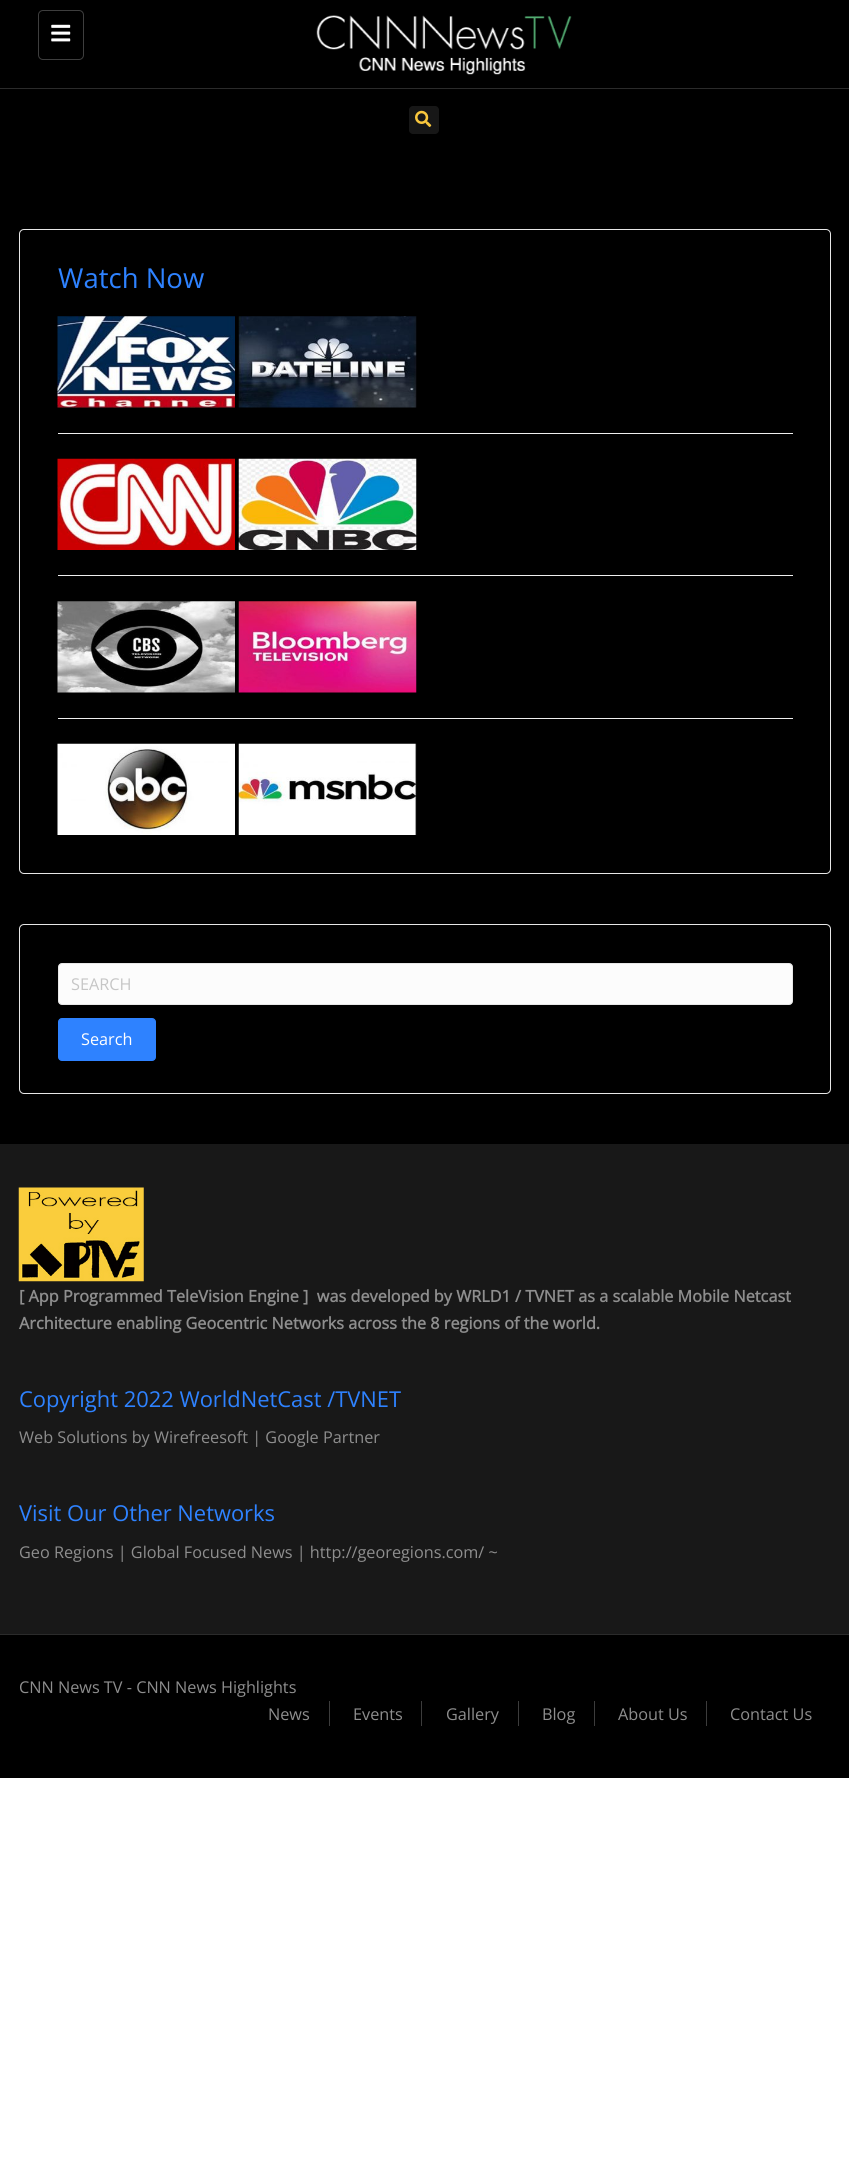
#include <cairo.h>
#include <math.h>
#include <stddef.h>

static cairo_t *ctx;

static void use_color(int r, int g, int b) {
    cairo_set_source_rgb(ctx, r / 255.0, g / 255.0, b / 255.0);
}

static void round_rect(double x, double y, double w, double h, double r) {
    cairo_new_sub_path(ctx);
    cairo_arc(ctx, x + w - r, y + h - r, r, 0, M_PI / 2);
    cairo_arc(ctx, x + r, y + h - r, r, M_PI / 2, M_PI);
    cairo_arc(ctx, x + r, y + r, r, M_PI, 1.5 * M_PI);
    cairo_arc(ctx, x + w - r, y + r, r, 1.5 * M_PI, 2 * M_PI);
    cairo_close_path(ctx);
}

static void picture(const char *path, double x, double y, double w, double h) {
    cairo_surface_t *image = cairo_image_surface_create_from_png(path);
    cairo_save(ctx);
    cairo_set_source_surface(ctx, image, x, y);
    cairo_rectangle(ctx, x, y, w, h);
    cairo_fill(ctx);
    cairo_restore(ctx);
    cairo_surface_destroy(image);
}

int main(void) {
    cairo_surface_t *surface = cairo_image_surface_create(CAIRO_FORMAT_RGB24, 849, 2173);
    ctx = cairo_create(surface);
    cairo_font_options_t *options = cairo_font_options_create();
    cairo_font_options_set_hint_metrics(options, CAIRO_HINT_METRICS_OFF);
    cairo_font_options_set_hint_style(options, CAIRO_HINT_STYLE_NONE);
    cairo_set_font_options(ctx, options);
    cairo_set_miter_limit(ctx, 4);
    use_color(255, 255, 255);
    cairo_paint(ctx);
    use_color(0, 0, 0);
    cairo_rectangle(ctx, 0, 0, 849, 1778);
    cairo_fill(ctx);
    use_color(43, 43, 43);
    cairo_rectangle(ctx, 0, 88, 849, 1);
    cairo_fill(ctx);
    round_rect(38.5, 10.5, 45, 49, 4.5);
    use_color(62, 62, 62);
    cairo_set_line_width(ctx, 1);
    cairo_stroke(ctx);
    picture("img1.png", 51, 24, 20, 18);
    picture("img2.png", 316, 15, 256, 60);
    use_color(23, 23, 23);
    round_rect(409, 106, 30, 28, 4);
    cairo_fill(ctx);
    picture("img3.png", 415, 110, 17, 17);
    round_rect(19.5, 229.5, 811, 644, 4.5);
    use_color(231, 231, 231);
    cairo_stroke(ctx);
    cairo_select_font_face(ctx, "Open Sans", CAIRO_FONT_SLANT_NORMAL, CAIRO_FONT_WEIGHT_NORMAL);
    cairo_set_font_size(ctx, 27.5);
    use_color(46, 130, 255);
    cairo_move_to(ctx, 58, 288);
    cairo_show_text(ctx, "Watch Now");
    picture("img4.png", 57, 316, 178, 92);
    picture("img5.png", 238, 316, 179, 92);
    use_color(238, 238, 238);
    cairo_rectangle(ctx, 58, 433, 735, 1);
    cairo_fill(ctx);
    picture("img6.png", 57, 458, 178, 92);
    picture("img7.png", 238, 458, 179, 92);
    cairo_rectangle(ctx, 58, 575, 735, 1);
    cairo_fill(ctx);
    picture("img8.png", 57, 601, 178, 92);
    picture("img9.png", 238, 601, 179, 92);
    cairo_rectangle(ctx, 58, 718, 735, 1);
    cairo_fill(ctx);
    picture("img10.png", 57, 743, 178, 92);
    picture("img11.png", 238, 743, 179, 92);
    round_rect(19.5, 924.5, 811, 169, 4.5);
    use_color(231, 231, 231);
    cairo_stroke(ctx);
    use_color(252, 252, 252);
    round_rect(58.5, 963.5, 734, 41, 3.5);
    cairo_fill_preserve(ctx);
    use_color(231, 231, 231);
    cairo_stroke(ctx);
    cairo_set_font_size(ctx, 16.25);
    use_color(198, 198, 198);
    cairo_move_to(ctx, 71, 990);
    cairo_show_text(ctx, "SEARCH");
    use_color(46, 130, 255);
    round_rect(58.5, 1018.5, 97, 42, 3.5);
    cairo_fill_preserve(ctx);
    cairo_stroke(ctx);
    use_color(255, 255, 255);
    cairo_move_to(ctx, 81, 1045);
    cairo_show_text(ctx, "Search");
    use_color(24, 24, 24);
    cairo_rectangle(ctx, 0, 1144, 849, 490);
    cairo_fill(ctx);
    picture("img12.png", 18, 1187, 126, 95);
    cairo_select_font_face(ctx, "Open Sans", CAIRO_FONT_SLANT_NORMAL, CAIRO_FONT_WEIGHT_BOLD);
    use_color(142, 142, 142);
    cairo_move_to(ctx, 19, 1302);
    cairo_show_text(ctx, "[ App Programmed TeleVision Engine ]  was developed by WRLD1 / TVNET as a scalable Mobile Netcast");
    cairo_move_to(ctx, 19, 1329);
    cairo_show_text(ctx, "Architecture enabling Geocentric Networks across the 8 regions of the world.");
    cairo_select_font_face(ctx, "Open Sans", CAIRO_FONT_SLANT_NORMAL, CAIRO_FONT_WEIGHT_NORMAL);
    cairo_set_font_size(ctx, 21.9);
    use_color(46, 130, 255);
    cairo_move_to(ctx, 19, 1407);
    cairo_show_text(ctx, "Copyright 2022 WorldNetCast /TVNET");
    cairo_set_font_size(ctx, 16.25);
    use_color(142, 142, 142);
    cairo_move_to(ctx, 19, 1443);
    cairo_show_text(ctx, "Web Solutions by Wirefreesoft | Google Partner");
    cairo_set_font_size(ctx, 21.9);
    use_color(46, 130, 255);
    cairo_move_to(ctx, 19, 1521);
    cairo_show_text(ctx, "Visit Our Other Networks");
    cairo_set_font_size(ctx, 16.25);
    use_color(142, 142, 142);
    cairo_move_to(ctx, 19, 1558);
    cairo_show_text(ctx, "Geo Regions | Global Focused News | http://georegions.com/ ~");
    use_color(43, 43, 43);
    cairo_rectangle(ctx, 0, 1634, 849, 1);
    cairo_fill(ctx);
    use_color(142, 142, 142);
    cairo_move_to(ctx, 19, 1693);
    cairo_show_text(ctx, "CNN News TV - CNN News Highlights");
    use_color(60, 60, 60);
    cairo_rectangle(ctx, 329, 1701, 1, 25);
    cairo_fill(ctx);
    use_color(142, 142, 142);
    cairo_move_to(ctx, 268, 1720);
    cairo_show_text(ctx, "News");
    use_color(60, 60, 60);
    cairo_rectangle(ctx, 421, 1701, 1, 25);
    cairo_fill(ctx);
    use_color(142, 142, 142);
    cairo_move_to(ctx, 353, 1720);
    cairo_show_text(ctx, "Events");
    use_color(60, 60, 60);
    cairo_rectangle(ctx, 518, 1701, 1, 25);
    cairo_fill(ctx);
    use_color(142, 142, 142);
    cairo_move_to(ctx, 446, 1720);
    cairo_show_text(ctx, "Gallery");
    use_color(60, 60, 60);
    cairo_rectangle(ctx, 594, 1701, 1, 25);
    cairo_fill(ctx);
    use_color(142, 142, 142);
    cairo_move_to(ctx, 542, 1720);
    cairo_show_text(ctx, "Blog");
    use_color(60, 60, 60);
    cairo_rectangle(ctx, 706, 1701, 1, 25);
    cairo_fill(ctx);
    use_color(142, 142, 142);
    cairo_move_to(ctx, 618, 1720);
    cairo_show_text(ctx, "About Us");
    cairo_move_to(ctx, 730, 1720);
    cairo_show_text(ctx, "Contact Us");
    cairo_surface_write_to_png(surface, "result.png");
    cairo_font_options_destroy(options);
    cairo_destroy(ctx);
    cairo_surface_destroy(surface);
    return 0;
}
